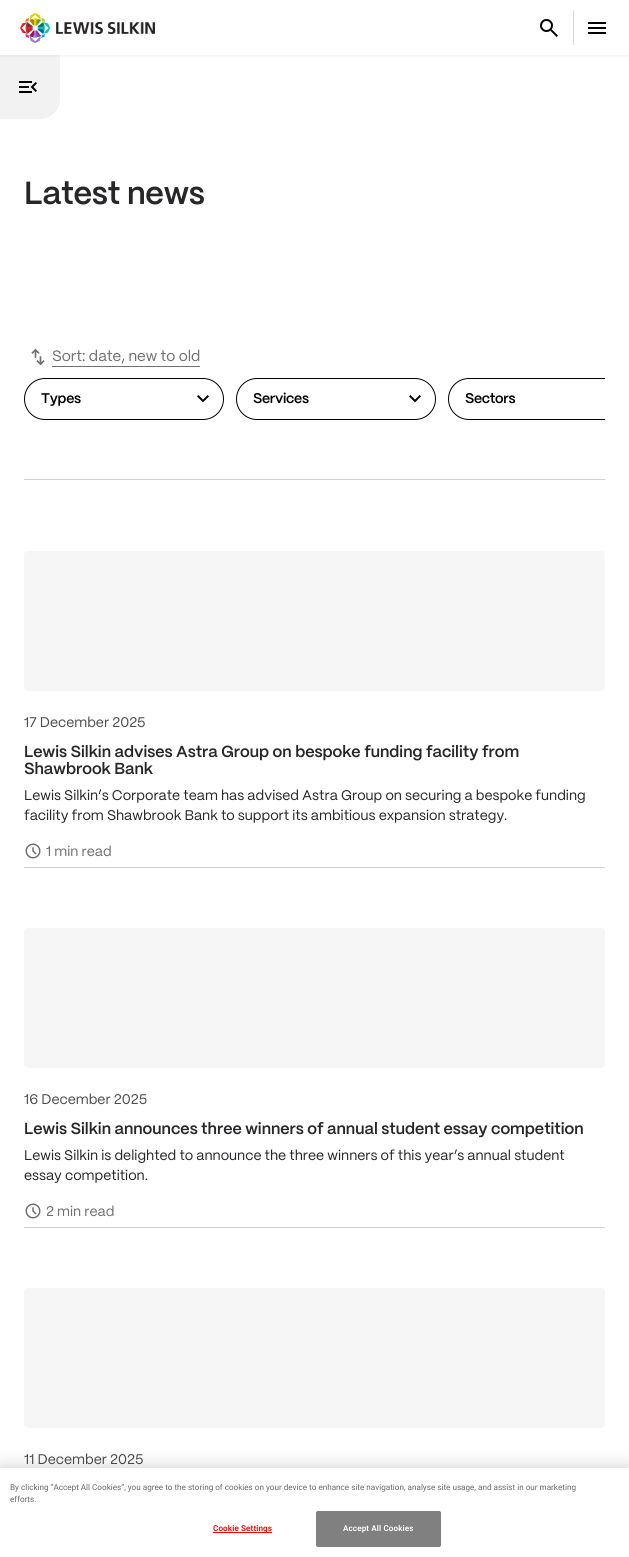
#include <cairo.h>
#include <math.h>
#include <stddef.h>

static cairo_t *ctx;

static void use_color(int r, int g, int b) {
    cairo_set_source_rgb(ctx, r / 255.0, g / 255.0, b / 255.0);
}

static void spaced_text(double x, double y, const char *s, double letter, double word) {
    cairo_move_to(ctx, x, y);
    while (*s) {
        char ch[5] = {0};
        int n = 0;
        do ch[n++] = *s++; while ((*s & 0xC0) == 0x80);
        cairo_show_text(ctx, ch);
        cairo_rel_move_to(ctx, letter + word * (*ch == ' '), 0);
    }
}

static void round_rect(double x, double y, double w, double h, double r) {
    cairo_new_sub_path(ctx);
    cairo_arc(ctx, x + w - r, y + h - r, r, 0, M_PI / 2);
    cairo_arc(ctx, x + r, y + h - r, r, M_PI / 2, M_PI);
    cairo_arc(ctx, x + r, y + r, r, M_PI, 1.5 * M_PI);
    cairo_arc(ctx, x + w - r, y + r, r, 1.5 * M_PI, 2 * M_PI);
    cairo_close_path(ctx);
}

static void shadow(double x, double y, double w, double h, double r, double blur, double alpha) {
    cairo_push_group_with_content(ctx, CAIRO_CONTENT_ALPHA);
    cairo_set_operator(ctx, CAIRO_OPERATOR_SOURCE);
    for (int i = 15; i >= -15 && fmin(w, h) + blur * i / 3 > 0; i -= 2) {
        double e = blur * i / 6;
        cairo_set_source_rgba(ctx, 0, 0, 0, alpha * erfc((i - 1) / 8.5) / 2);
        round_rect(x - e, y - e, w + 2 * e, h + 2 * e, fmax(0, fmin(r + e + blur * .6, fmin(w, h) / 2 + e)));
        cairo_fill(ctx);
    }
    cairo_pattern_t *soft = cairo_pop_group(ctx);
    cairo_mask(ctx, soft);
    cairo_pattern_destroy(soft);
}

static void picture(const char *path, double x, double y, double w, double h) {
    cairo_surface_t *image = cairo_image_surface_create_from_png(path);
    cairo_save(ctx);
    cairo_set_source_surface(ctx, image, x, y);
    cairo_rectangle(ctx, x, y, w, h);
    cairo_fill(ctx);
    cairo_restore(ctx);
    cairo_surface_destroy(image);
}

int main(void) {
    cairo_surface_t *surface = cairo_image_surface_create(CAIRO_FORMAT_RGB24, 629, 1557);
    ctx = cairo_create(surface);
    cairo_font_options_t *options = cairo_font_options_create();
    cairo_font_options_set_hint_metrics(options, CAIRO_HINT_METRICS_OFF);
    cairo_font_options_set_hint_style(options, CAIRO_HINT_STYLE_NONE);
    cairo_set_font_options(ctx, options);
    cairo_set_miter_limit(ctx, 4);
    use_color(255, 255, 255);
    cairo_paint(ctx);
    use_color(242, 242, 242);
    cairo_new_path(ctx);
    cairo_move_to(ctx, 0, 55);
    cairo_line_to(ctx, 60, 55);
    cairo_line_to(ctx, 60, 99);
    cairo_curve_to(ctx, 60, 110, 51, 119, 40, 119);
    cairo_line_to(ctx, 0, 119);
    cairo_close_path(ctx);
    cairo_fill(ctx);
    cairo_save(ctx);
    cairo_rectangle(ctx, 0, 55, 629, 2);
    cairo_clip(ctx);
    use_color(0, 0, 0);
    shadow(0, 0, 629, 55, 0, 2.5, 0.1);
    cairo_restore(ctx);
    picture("img1.png", 20, 13, 136, 30);
    picture("img2.png", 540, 19, 18, 18);
    use_color(219, 219, 219);
    cairo_rectangle(ctx, 573, 10, 1, 35);
    cairo_fill(ctx);
    picture("img3.png", 588, 22, 18, 12);
    picture("img4.png", 19, 81, 18, 12);
    cairo_select_font_face(ctx, "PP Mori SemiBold", CAIRO_FONT_SLANT_NORMAL, CAIRO_FONT_WEIGHT_NORMAL);
    cairo_set_font_size(ctx, 32);
    use_color(39, 39, 42);
    spaced_text(24, 204, "Latest news", -0.25, 0);
    use_color(209, 209, 209);
    cairo_rectangle(ctx, 24, 479, 581, 1);
    cairo_fill(ctx);
    picture("img5.png", 31, 348, 14, 18);
    cairo_select_font_face(ctx, "PP Mori", CAIRO_FONT_SLANT_NORMAL, CAIRO_FONT_WEIGHT_NORMAL);
    cairo_set_font_size(ctx, 15);
    use_color(112, 112, 112);
    cairo_move_to(ctx, 52, 361);
    cairo_show_text(ctx, "Sort: date, new to old");
    cairo_rectangle(ctx, 52, 366, 148, 1);
    cairo_fill(ctx);
    round_rect(24.5, 378.5, 199, 41, 20.5);
    use_color(0, 0, 0);
    cairo_set_line_width(ctx, 1);
    cairo_stroke(ctx);
    cairo_select_font_face(ctx, "PP Mori SemiBold", CAIRO_FONT_SLANT_NORMAL, CAIRO_FONT_WEIGHT_NORMAL);
    cairo_set_font_size(ctx, 14);
    spaced_text(41, 403, "Types", -0.25, 0);
    picture("img6.png", 197, 395, 12, 8);
    round_rect(236.5, 378.5, 199, 41, 20.5);
    cairo_stroke(ctx);
    spaced_text(253, 403, "Services", -0.25, 0);
    picture("img6.png", 409, 395, 12, 8);
    cairo_save(ctx);
    cairo_rectangle(ctx, 24, 378, 581, 42);
    cairo_clip(ctx);
    round_rect(448.5, 378.5, 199, 41, 20.5);
    cairo_stroke(ctx);
    cairo_restore(ctx);
    spaced_text(465, 403, "Sectors", -0.25, 0);
    use_color(246, 246, 246);
    round_rect(24, 551, 581, 140, 4);
    cairo_fill(ctx);
    cairo_select_font_face(ctx, "PP Mori", CAIRO_FONT_SLANT_NORMAL, CAIRO_FONT_WEIGHT_NORMAL);
    use_color(77, 77, 77);
    cairo_move_to(ctx, 24, 727);
    cairo_show_text(ctx, "17 December 2025");
    cairo_select_font_face(ctx, "PP Mori SemiBold", CAIRO_FONT_SLANT_NORMAL, CAIRO_FONT_WEIGHT_NORMAL);
    cairo_set_font_size(ctx, 16);
    use_color(39, 39, 42);
    cairo_move_to(ctx, 24, 757);
    cairo_show_text(ctx, "Lewis Silkin advises Astra Group on bespoke funding facility from");
    cairo_move_to(ctx, 24, 774);
    cairo_show_text(ctx, "Shawbrook Bank");
    cairo_select_font_face(ctx, "PP Mori", CAIRO_FONT_SLANT_NORMAL, CAIRO_FONT_WEIGHT_NORMAL);
    cairo_set_font_size(ctx, 14);
    cairo_move_to(ctx, 24, 800);
    cairo_show_text(ctx, "Lewis Silkin’s Corporate team has advised Astra Group on securing a bespoke funding");
    cairo_move_to(ctx, 24, 820);
    cairo_show_text(ctx, "facility from Shawbrook Bank to support its ambitious expansion strategy.");
    picture("img7.png", 25, 843, 16, 16);
    use_color(112, 112, 112);
    cairo_move_to(ctx, 46, 856);
    cairo_show_text(ctx, "1 min read");
    use_color(209, 209, 209);
    cairo_rectangle(ctx, 24, 867, 581, 1);
    cairo_fill(ctx);
    use_color(246, 246, 246);
    round_rect(24, 928, 581, 140, 4);
    cairo_fill(ctx);
    use_color(77, 77, 77);
    cairo_move_to(ctx, 24, 1104);
    cairo_show_text(ctx, "16 December 2025");
    cairo_select_font_face(ctx, "PP Mori SemiBold", CAIRO_FONT_SLANT_NORMAL, CAIRO_FONT_WEIGHT_NORMAL);
    cairo_set_font_size(ctx, 16);
    use_color(39, 39, 42);
    cairo_move_to(ctx, 24, 1134);
    cairo_show_text(ctx, "Lewis Silkin announces three winners of annual student essay competition");
    cairo_select_font_face(ctx, "PP Mori", CAIRO_FONT_SLANT_NORMAL, CAIRO_FONT_WEIGHT_NORMAL);
    cairo_set_font_size(ctx, 14);
    cairo_move_to(ctx, 24, 1160);
    cairo_show_text(ctx, "Lewis Silkin is delighted to announce the three winners of this year’s annual student");
    cairo_move_to(ctx, 24, 1180);
    cairo_show_text(ctx, "essay competition.");
    picture("img7.png", 25, 1203, 16, 16);
    use_color(112, 112, 112);
    cairo_move_to(ctx, 46, 1216);
    cairo_show_text(ctx, "2 min read");
    use_color(209, 209, 209);
    cairo_rectangle(ctx, 24, 1227, 581, 1);
    cairo_fill(ctx);
    use_color(246, 246, 246);
    round_rect(24, 1288, 581, 140, 4);
    cairo_fill(ctx);
    use_color(77, 77, 77);
    cairo_move_to(ctx, 24, 1464);
    cairo_show_text(ctx, "11 December 2025");
    use_color(0, 0, 0);
    shadow(0, 1468, 629, 89, 0, 9, 0.2);
    use_color(255, 255, 255);
    cairo_rectangle(ctx, 0, 1468, 629, 89);
    cairo_fill(ctx);
    cairo_select_font_face(ctx, "Roboto", CAIRO_FONT_SLANT_NORMAL, CAIRO_FONT_WEIGHT_NORMAL);
    cairo_set_font_size(ctx, 8.13);
    use_color(105, 105, 105);
    cairo_move_to(ctx, 10, 1490);
    cairo_show_text(ctx, "By clicking “Accept All Cookies”, you agree to the storing of cookies on your device to enhance site navigation, analyse site usage, and assist in our marketing");
    cairo_move_to(ctx, 10, 1502);
    cairo_show_text(ctx, "efforts.");
    use_color(255, 0, 0);
    cairo_rectangle(ctx, 213, 1532, 59, 1);
    cairo_fill(ctx);
    cairo_select_font_face(ctx, "Roboto SemiBold", CAIRO_FONT_SLANT_NORMAL, CAIRO_FONT_WEIGHT_NORMAL);
    spaced_text(213, 1531, "Cookie Settings", 0.1, 0);
    use_color(128, 128, 128);
    round_rect(316.5, 1511.5, 124, 35, 1.5);
    cairo_fill_preserve(ctx);
    cairo_stroke(ctx);
    use_color(255, 255, 255);
    spaced_text(343, 1531, "Accept All Cookies", 0.1, 0);
    cairo_surface_write_to_png(surface, "result.png");
    cairo_font_options_destroy(options);
    cairo_destroy(ctx);
    cairo_surface_destroy(surface);
    return 0;
}
